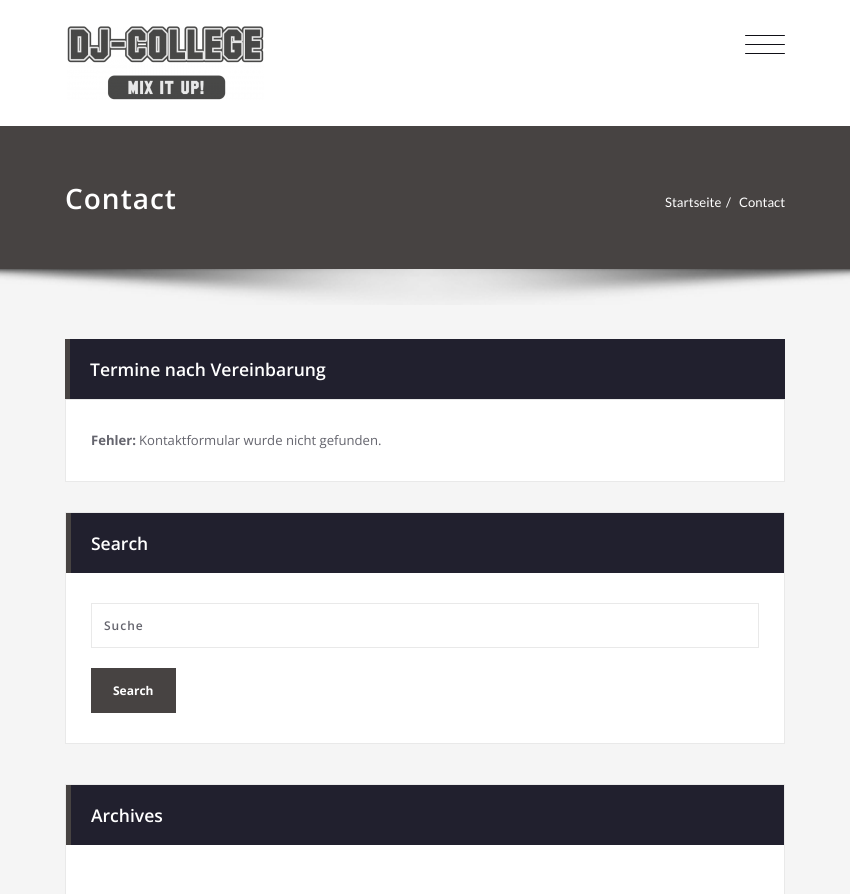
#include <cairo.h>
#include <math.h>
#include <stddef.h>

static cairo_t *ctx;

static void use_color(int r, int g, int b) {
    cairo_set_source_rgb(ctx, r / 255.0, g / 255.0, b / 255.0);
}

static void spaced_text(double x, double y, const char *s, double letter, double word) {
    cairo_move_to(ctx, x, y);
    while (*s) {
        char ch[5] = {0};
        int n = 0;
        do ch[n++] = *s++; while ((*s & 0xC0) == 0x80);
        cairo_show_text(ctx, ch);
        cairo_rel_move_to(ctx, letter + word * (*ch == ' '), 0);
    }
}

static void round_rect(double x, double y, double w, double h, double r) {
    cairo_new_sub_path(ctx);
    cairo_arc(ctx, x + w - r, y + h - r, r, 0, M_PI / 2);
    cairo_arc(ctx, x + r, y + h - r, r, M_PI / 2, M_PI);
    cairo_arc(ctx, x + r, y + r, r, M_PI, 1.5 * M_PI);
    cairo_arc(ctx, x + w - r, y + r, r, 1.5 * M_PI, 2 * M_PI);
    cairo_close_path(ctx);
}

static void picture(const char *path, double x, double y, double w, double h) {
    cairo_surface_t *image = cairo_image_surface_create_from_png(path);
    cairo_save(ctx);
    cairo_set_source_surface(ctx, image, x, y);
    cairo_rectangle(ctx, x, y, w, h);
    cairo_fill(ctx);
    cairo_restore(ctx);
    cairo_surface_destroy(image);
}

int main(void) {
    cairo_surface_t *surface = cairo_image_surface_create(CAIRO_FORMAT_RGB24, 850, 894);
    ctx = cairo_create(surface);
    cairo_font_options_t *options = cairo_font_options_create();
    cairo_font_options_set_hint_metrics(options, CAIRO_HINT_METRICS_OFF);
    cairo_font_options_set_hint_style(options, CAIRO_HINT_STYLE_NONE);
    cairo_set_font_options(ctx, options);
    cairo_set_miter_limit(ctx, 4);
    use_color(245, 245, 245);
    cairo_paint(ctx);
    use_color(255, 255, 255);
    cairo_rectangle(ctx, 0, 0, 850, 126);
    cairo_fill(ctx);
    picture("img1.png", 67, 26, 197, 74);
    use_color(15, 15, 22);
    round_rect(745, 35, 40, 1, 0.5);
    cairo_fill(ctx);
    round_rect(745, 44, 40, 1, 0.5);
    cairo_fill(ctx);
    round_rect(745, 53, 40, 1, 0.5);
    cairo_fill(ctx);
    use_color(71, 67, 66);
    cairo_rectangle(ctx, 0, 126, 850, 143);
    cairo_fill(ctx);
    cairo_select_font_face(ctx, "Open Sans SemiBold", CAIRO_FONT_SLANT_NORMAL, CAIRO_FONT_WEIGHT_NORMAL);
    cairo_set_font_size(ctx, 28);
    use_color(255, 255, 255);
    spaced_text(65, 209, "Contact", 1, 0);
    cairo_select_font_face(ctx, "Lato", CAIRO_FONT_SLANT_NORMAL, CAIRO_FONT_WEIGHT_NORMAL);
    cairo_set_font_size(ctx, 13.1);
    cairo_move_to(ctx, 665, 207);
    cairo_show_text(ctx, "Startseite");
    cairo_move_to(ctx, 726, 207);
    cairo_show_text(ctx, "/");
    cairo_move_to(ctx, 739, 207);
    cairo_show_text(ctx, "Contact");
    picture("img2.png", 0, 269, 850, 36);
    use_color(33, 32, 46);
    cairo_rectangle(ctx, 70, 339, 715, 60);
    cairo_fill(ctx);
    use_color(71, 67, 66);
    cairo_rectangle(ctx, 65, 339, 5, 60);
    cairo_fill(ctx);
    cairo_select_font_face(ctx, "Open Sans SemiBold", CAIRO_FONT_SLANT_NORMAL, CAIRO_FONT_WEIGHT_NORMAL);
    cairo_set_font_size(ctx, 17.5);
    use_color(255, 255, 255);
    cairo_move_to(ctx, 90, 376);
    cairo_show_text(ctx, "Termine nach Vereinbarung");
    cairo_rectangle(ctx, 65.5, 399.5, 719, 82);
    cairo_fill_preserve(ctx);
    use_color(233, 233, 233);
    cairo_set_line_width(ctx, 1);
    cairo_stroke(ctx);
    cairo_select_font_face(ctx, "Open Sans", CAIRO_FONT_SLANT_NORMAL, CAIRO_FONT_WEIGHT_BOLD);
    cairo_set_font_size(ctx, 13.1);
    use_color(100, 100, 109);
    cairo_move_to(ctx, 91, 445);
    cairo_show_text(ctx, "Fehler:");
    cairo_select_font_face(ctx, "Open Sans", CAIRO_FONT_SLANT_NORMAL, CAIRO_FONT_WEIGHT_NORMAL);
    cairo_move_to(ctx, 139, 445);
    cairo_show_text(ctx, "Kontaktformular wurde nicht gefunden.");
    use_color(255, 255, 255);
    cairo_rectangle(ctx, 66, 573, 718, 170);
    cairo_fill(ctx);
    cairo_rectangle(ctx, 65.5, 512.5, 719, 231);
    use_color(233, 233, 233);
    cairo_stroke(ctx);
    use_color(33, 32, 46);
    cairo_rectangle(ctx, 71, 513, 713, 60);
    cairo_fill(ctx);
    use_color(71, 67, 66);
    cairo_rectangle(ctx, 66, 513, 5, 60);
    cairo_fill(ctx);
    cairo_select_font_face(ctx, "Open Sans SemiBold", CAIRO_FONT_SLANT_NORMAL, CAIRO_FONT_WEIGHT_NORMAL);
    cairo_set_font_size(ctx, 17.5);
    use_color(255, 255, 255);
    cairo_move_to(ctx, 91, 550);
    cairo_show_text(ctx, "Search");
    cairo_rectangle(ctx, 91.5, 603.5, 667, 44);
    use_color(233, 233, 233);
    cairo_stroke(ctx);
    cairo_set_font_size(ctx, 12);
    use_color(100, 100, 109);
    spaced_text(104, 630, "Suche", 1, 0);
    use_color(71, 67, 66);
    cairo_rectangle(ctx, 91, 668, 85, 45);
    cairo_fill(ctx);
    cairo_select_font_face(ctx, "Open Sans", CAIRO_FONT_SLANT_NORMAL, CAIRO_FONT_WEIGHT_BOLD);
    use_color(255, 255, 255);
    cairo_move_to(ctx, 113, 695);
    cairo_show_text(ctx, "Search");
    cairo_rectangle(ctx, 66, 845, 718, 49);
    cairo_fill(ctx);
    cairo_rectangle(ctx, 65.5, 784.5, 719, 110);
    use_color(233, 233, 233);
    cairo_stroke(ctx);
    use_color(33, 32, 46);
    cairo_rectangle(ctx, 71, 785, 713, 60);
    cairo_fill(ctx);
    use_color(71, 67, 66);
    cairo_rectangle(ctx, 66, 785, 5, 60);
    cairo_fill(ctx);
    cairo_select_font_face(ctx, "Open Sans SemiBold", CAIRO_FONT_SLANT_NORMAL, CAIRO_FONT_WEIGHT_NORMAL);
    cairo_set_font_size(ctx, 17.5);
    use_color(255, 255, 255);
    cairo_move_to(ctx, 91, 822);
    cairo_show_text(ctx, "Archives");
    cairo_surface_write_to_png(surface, "result.png");
    cairo_font_options_destroy(options);
    cairo_destroy(ctx);
    cairo_surface_destroy(surface);
    return 0;
}
